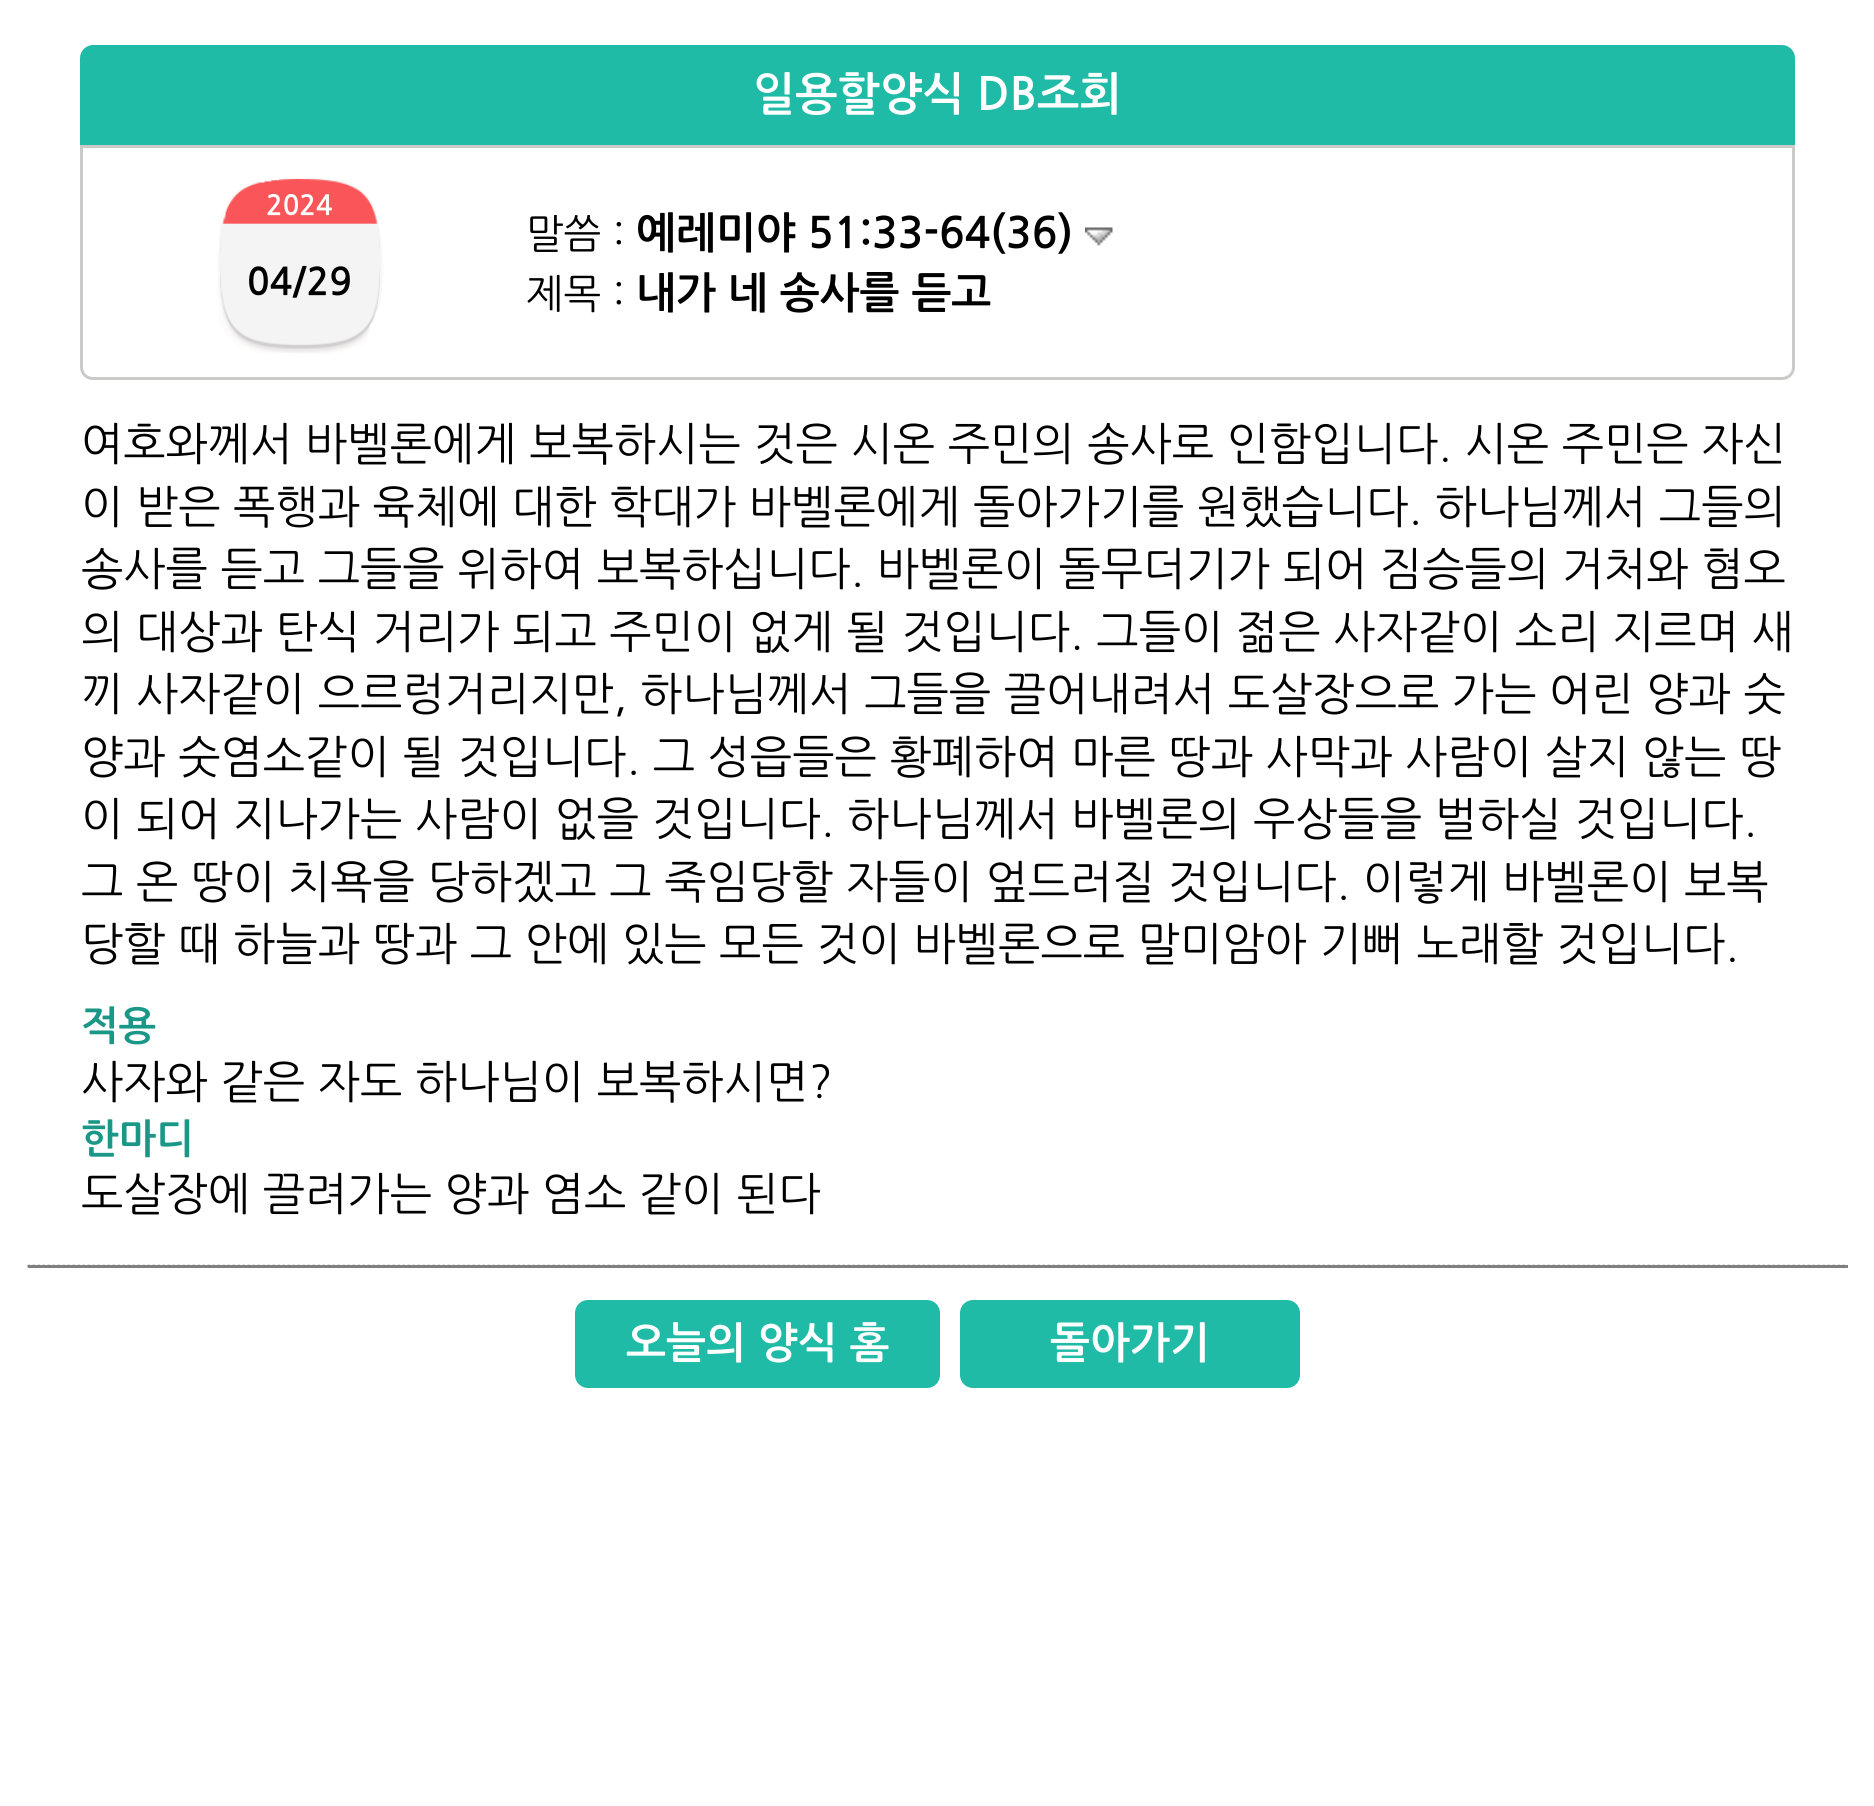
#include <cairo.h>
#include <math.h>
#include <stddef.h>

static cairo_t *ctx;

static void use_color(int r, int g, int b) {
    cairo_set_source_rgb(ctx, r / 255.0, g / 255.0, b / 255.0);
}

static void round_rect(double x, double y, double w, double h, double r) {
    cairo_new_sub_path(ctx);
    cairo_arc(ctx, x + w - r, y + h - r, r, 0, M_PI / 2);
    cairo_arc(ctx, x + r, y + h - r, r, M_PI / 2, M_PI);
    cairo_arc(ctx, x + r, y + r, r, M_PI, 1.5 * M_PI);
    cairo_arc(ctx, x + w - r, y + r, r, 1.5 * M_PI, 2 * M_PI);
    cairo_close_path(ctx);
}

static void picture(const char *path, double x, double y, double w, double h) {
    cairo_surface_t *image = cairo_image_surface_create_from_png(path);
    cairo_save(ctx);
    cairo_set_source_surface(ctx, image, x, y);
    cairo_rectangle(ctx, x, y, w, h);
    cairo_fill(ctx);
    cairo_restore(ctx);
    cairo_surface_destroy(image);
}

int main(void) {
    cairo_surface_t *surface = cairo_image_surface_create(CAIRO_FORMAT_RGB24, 1874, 1806);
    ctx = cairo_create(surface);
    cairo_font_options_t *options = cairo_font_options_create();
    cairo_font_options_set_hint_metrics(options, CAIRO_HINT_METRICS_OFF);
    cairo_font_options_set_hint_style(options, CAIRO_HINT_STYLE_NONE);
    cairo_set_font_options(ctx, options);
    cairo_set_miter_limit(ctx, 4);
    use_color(255, 255, 255);
    cairo_paint(ctx);
    use_color(31, 187, 166);
    cairo_new_path(ctx);
    cairo_move_to(ctx, 93, 45);
    cairo_line_to(ctx, 1782, 45);
    cairo_curve_to(ctx, 1789, 45, 1795, 51, 1795, 58);
    cairo_line_to(ctx, 1795, 145);
    cairo_line_to(ctx, 80, 145);
    cairo_line_to(ctx, 80, 58);
    cairo_curve_to(ctx, 80, 51, 86, 45, 93, 45);
    cairo_close_path(ctx);
    cairo_fill(ctx);
    cairo_select_font_face(ctx, "NanumGothic", CAIRO_FONT_SLANT_NORMAL, CAIRO_FONT_WEIGHT_BOLD);
    cairo_set_font_size(ctx, 45);
    use_color(255, 255, 255);
    cairo_move_to(ctx, 753, 110);
    cairo_show_text(ctx, "일용할양식 DB조회");
    cairo_new_path(ctx);
    cairo_move_to(ctx, 81.5, 146.5);
    cairo_line_to(ctx, 1793.5, 146.5);
    cairo_line_to(ctx, 1793.5, 367);
    cairo_curve_to(ctx, 1793.5, 373.5, 1788.5, 378.5, 1782, 378.5);
    cairo_line_to(ctx, 93, 378.5);
    cairo_curve_to(ctx, 86.5, 378.5, 81.5, 373.5, 81.5, 367);
    cairo_close_path(ctx);
    use_color(202, 202, 200);
    cairo_set_line_width(ctx, 3);
    cairo_stroke(ctx);
    picture("img1.png", 217, 178, 167, 176);
    cairo_set_font_size(ctx, 27.5);
    use_color(255, 255, 255);
    cairo_move_to(ctx, 266, 215);
    cairo_show_text(ctx, "2024");
    cairo_set_font_size(ctx, 37.5);
    use_color(0, 0, 0);
    cairo_move_to(ctx, 247, 295);
    cairo_show_text(ctx, "04/29");
    cairo_select_font_face(ctx, "NanumGothic", CAIRO_FONT_SLANT_NORMAL, CAIRO_FONT_WEIGHT_NORMAL);
    cairo_set_font_size(ctx, 40);
    cairo_move_to(ctx, 526, 248);
    cairo_show_text(ctx, "말씀 :");
    cairo_select_font_face(ctx, "NanumGothic", CAIRO_FONT_SLANT_NORMAL, CAIRO_FONT_WEIGHT_BOLD);
    cairo_set_font_size(ctx, 42.5);
    cairo_move_to(ctx, 636, 248);
    cairo_show_text(ctx, "예레미야 51:33-64(36)");
    picture("img2.png", 1085, 227, 28, 19);
    cairo_select_font_face(ctx, "NanumGothic", CAIRO_FONT_SLANT_NORMAL, CAIRO_FONT_WEIGHT_NORMAL);
    cairo_set_font_size(ctx, 40);
    cairo_move_to(ctx, 526, 308);
    cairo_show_text(ctx, "제목 :");
    cairo_select_font_face(ctx, "NanumGothic", CAIRO_FONT_SLANT_NORMAL, CAIRO_FONT_WEIGHT_BOLD);
    cairo_set_font_size(ctx, 42.5);
    cairo_move_to(ctx, 636, 308);
    cairo_show_text(ctx, "내가 네 송사를 듣고");
    cairo_select_font_face(ctx, "NanumGothic", CAIRO_FONT_SLANT_NORMAL, CAIRO_FONT_WEIGHT_NORMAL);
    cairo_set_font_size(ctx, 45);
    cairo_move_to(ctx, 81, 460);
    cairo_show_text(ctx, "여호와께서 바벨론에게 보복하시는 것은 시온 주민의 송사로 인함입니다. 시온 주민은 자신");
    cairo_move_to(ctx, 81, 523);
    cairo_show_text(ctx, "이 받은 폭행과 육체에 대한 학대가 바벨론에게 돌아가기를 원했습니다. 하나님께서 그들의");
    cairo_move_to(ctx, 81, 585);
    cairo_show_text(ctx, "송사를 듣고 그들을 위하여 보복하십니다. 바벨론이 돌무더기가 되어 짐승들의 거처와 혐오");
    cairo_move_to(ctx, 81, 648);
    cairo_show_text(ctx, "의 대상과 탄식 거리가 되고 주민이 없게 될 것입니다. 그들이 젊은 사자같이 소리 지르며 새");
    cairo_move_to(ctx, 81, 710);
    cairo_show_text(ctx, "끼 사자같이 으르렁거리지만, 하나님께서 그들을 끌어내려서 도살장으로 가는 어린 양과 숫");
    cairo_move_to(ctx, 81, 773);
    cairo_show_text(ctx, "양과 숫염소같이 될 것입니다. 그 성읍들은 황폐하여 마른 땅과 사막과 사람이 살지 않는 땅");
    cairo_move_to(ctx, 81, 835);
    cairo_show_text(ctx, "이 되어 지나가는 사람이 없을 것입니다. 하나님께서 바벨론의 우상들을 벌하실 것입니다.");
    cairo_move_to(ctx, 81, 898);
    cairo_show_text(ctx, "그 온 땅이 치욕을 당하겠고 그 죽임당할 자들이 엎드러질 것입니다. 이렇게 바벨론이 보복");
    cairo_move_to(ctx, 81, 960);
    cairo_show_text(ctx, "당할 때 하늘과 땅과 그 안에 있는 모든 것이 바벨론으로 말미암아 기뻐 노래할 것입니다.");
    cairo_select_font_face(ctx, "NanumGothic", CAIRO_FONT_SLANT_NORMAL, CAIRO_FONT_WEIGHT_BOLD);
    cairo_set_font_size(ctx, 40);
    use_color(26, 151, 135);
    cairo_move_to(ctx, 81, 1040);
    cairo_show_text(ctx, "적용");
    cairo_select_font_face(ctx, "NanumGothic", CAIRO_FONT_SLANT_NORMAL, CAIRO_FONT_WEIGHT_NORMAL);
    cairo_set_font_size(ctx, 45);
    use_color(0, 0, 0);
    cairo_move_to(ctx, 81, 1098);
    cairo_show_text(ctx, "사자와 같은 자도 하나님이 보복하시면?");
    cairo_select_font_face(ctx, "NanumGothic", CAIRO_FONT_SLANT_NORMAL, CAIRO_FONT_WEIGHT_BOLD);
    cairo_set_font_size(ctx, 40);
    use_color(26, 151, 135);
    cairo_move_to(ctx, 81, 1153);
    cairo_show_text(ctx, "한마디");
    cairo_select_font_face(ctx, "NanumGothic", CAIRO_FONT_SLANT_NORMAL, CAIRO_FONT_WEIGHT_NORMAL);
    cairo_set_font_size(ctx, 45);
    use_color(0, 0, 0);
    cairo_move_to(ctx, 81, 1210);
    cairo_show_text(ctx, "도살장에 끌려가는 양과 염소 같이 된다");
    use_color(128, 128, 128);
    cairo_rectangle(ctx, 28, 1265, 1820, 3);
    cairo_fill(ctx);
    cairo_new_path(ctx);
    cairo_move_to(ctx, 27.5, 1266);
    cairo_line_to(ctx, 1847.5, 1266);
    cairo_set_line_width(ctx, 2.5);
    cairo_set_dash(ctx, (double[]){2.5, 2.5}, 2, 0);
    cairo_stroke(ctx);
    use_color(31, 187, 166);
    round_rect(575, 1300, 365, 88, 13);
    cairo_fill(ctx);
    cairo_select_font_face(ctx, "NanumGothic", CAIRO_FONT_SLANT_NORMAL, CAIRO_FONT_WEIGHT_BOLD);
    cairo_set_font_size(ctx, 42.5);
    use_color(255, 255, 255);
    cairo_move_to(ctx, 626, 1358);
    cairo_show_text(ctx, "오늘의 양식 홈");
    use_color(31, 187, 166);
    round_rect(960, 1300, 340, 88, 13);
    cairo_fill(ctx);
    use_color(255, 255, 255);
    cairo_move_to(ctx, 1050, 1358);
    cairo_show_text(ctx, "돌아가기");
    cairo_surface_write_to_png(surface, "result.png");
    cairo_font_options_destroy(options);
    cairo_destroy(ctx);
    cairo_surface_destroy(surface);
    return 0;
}
